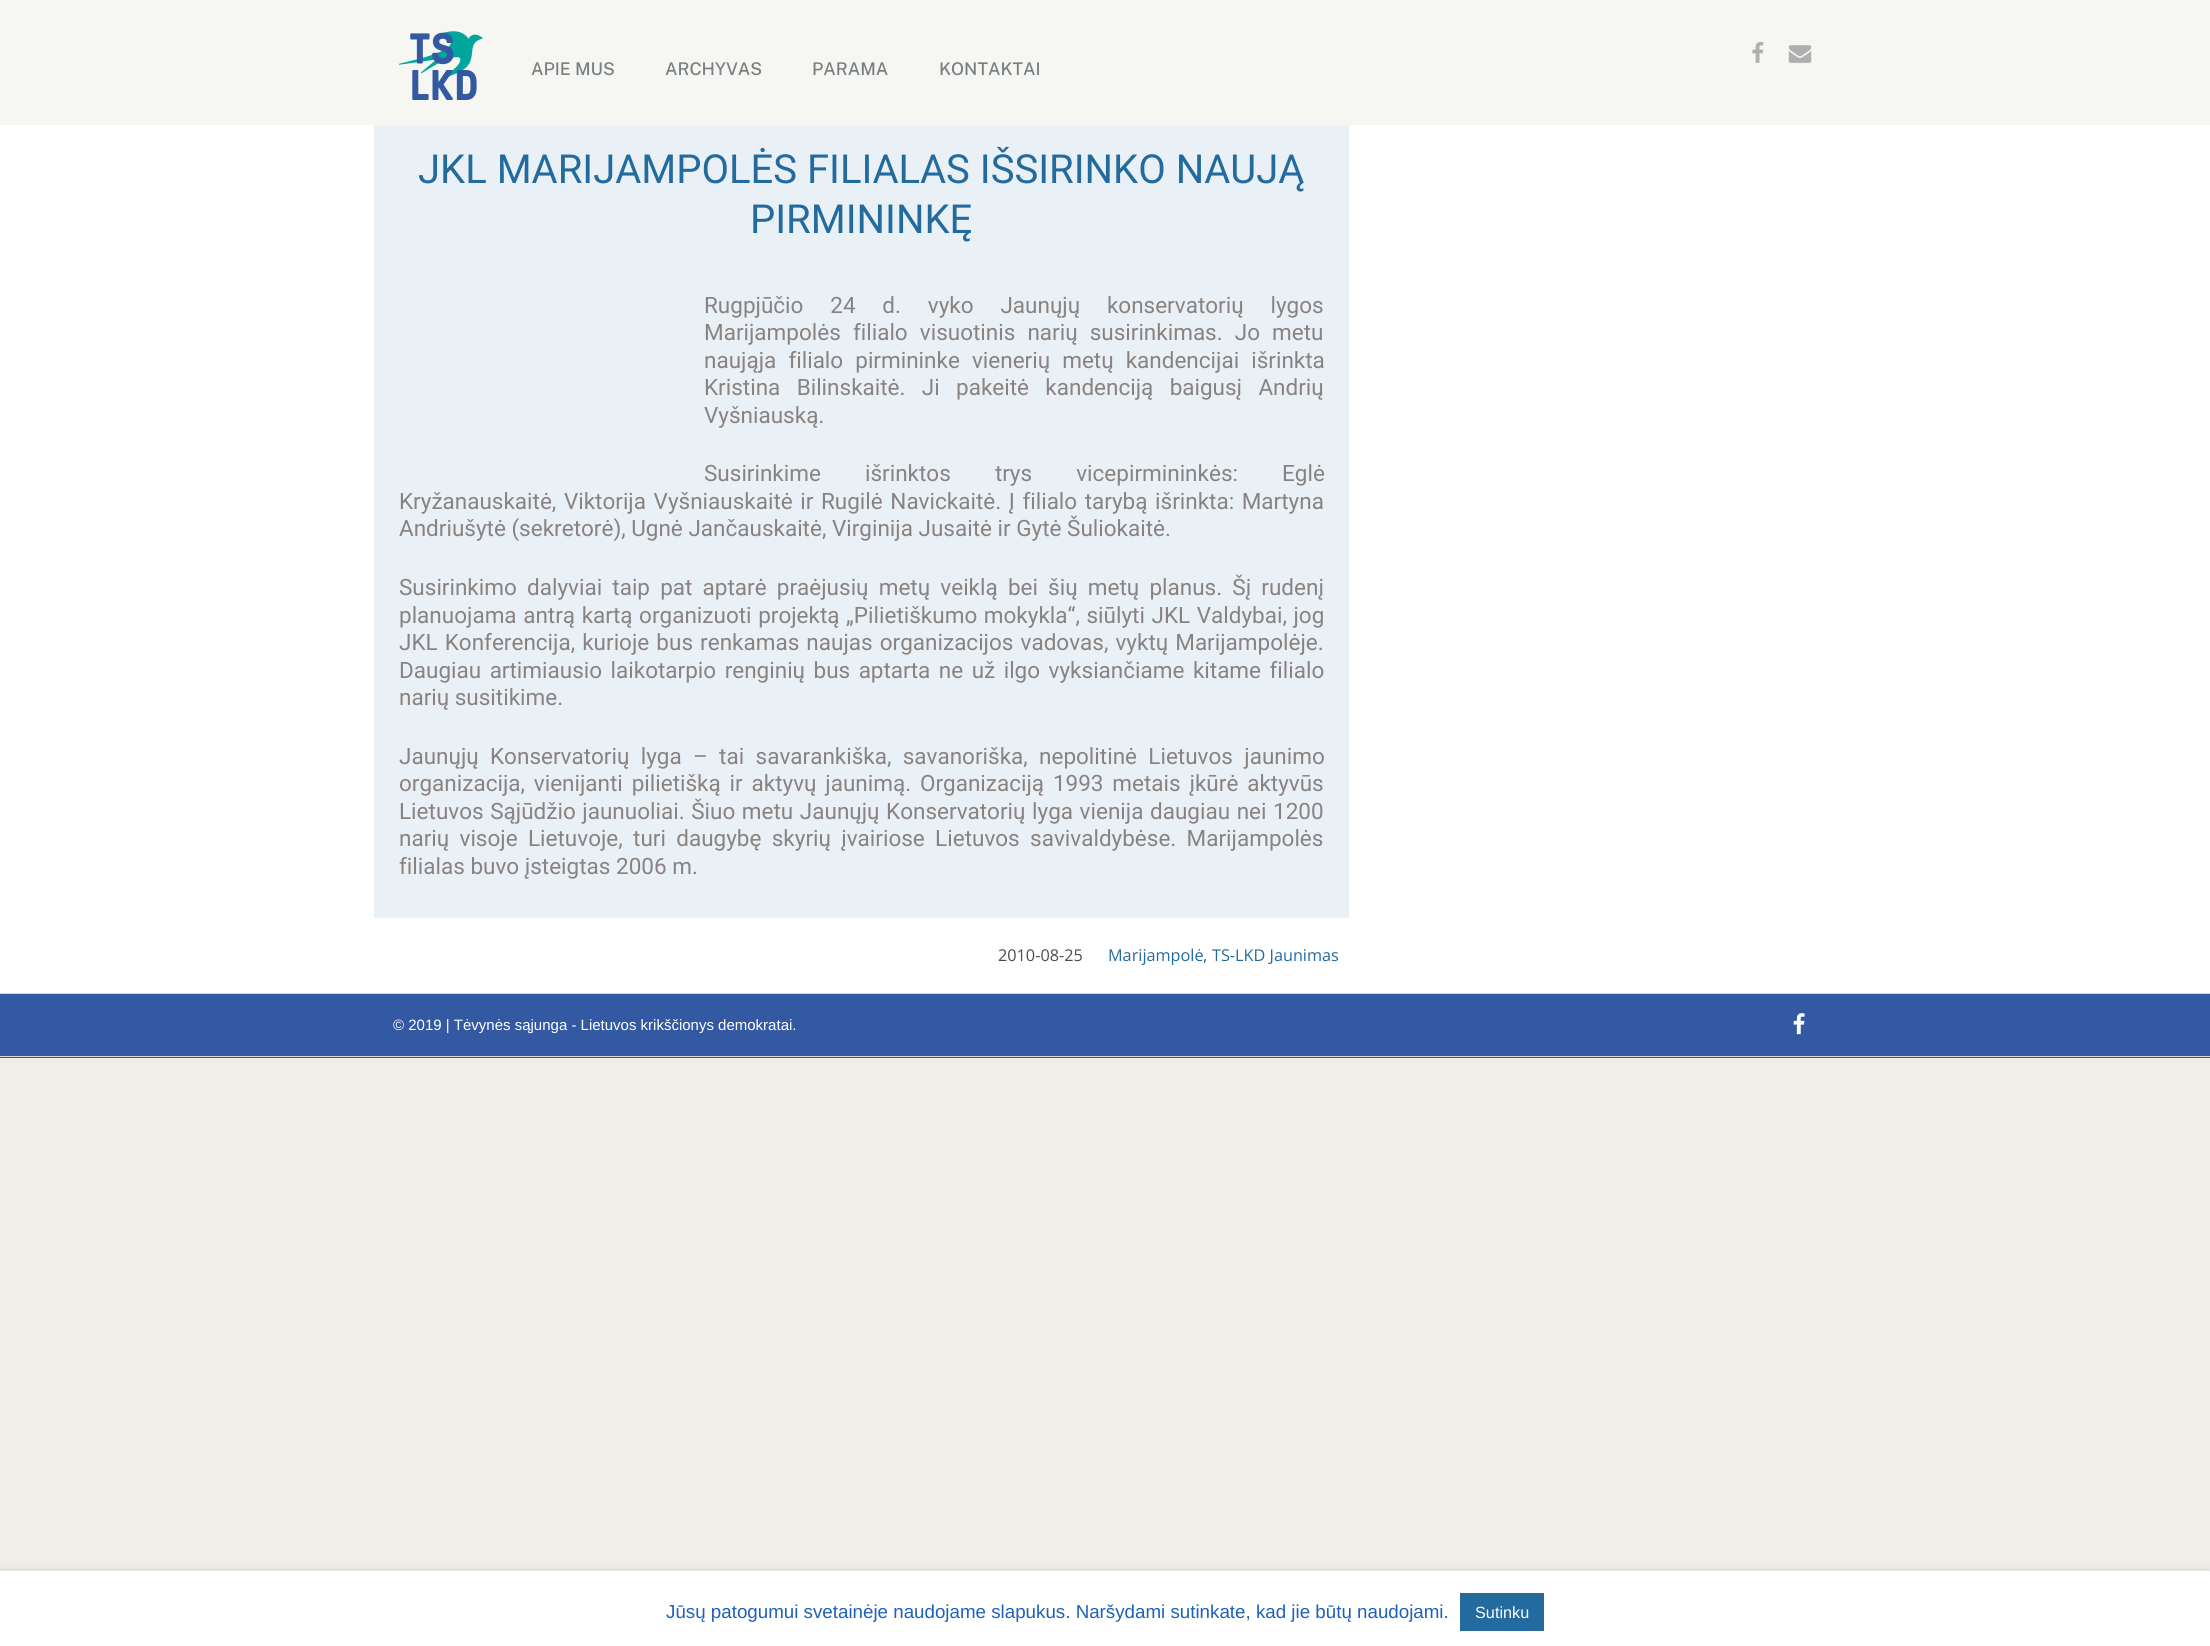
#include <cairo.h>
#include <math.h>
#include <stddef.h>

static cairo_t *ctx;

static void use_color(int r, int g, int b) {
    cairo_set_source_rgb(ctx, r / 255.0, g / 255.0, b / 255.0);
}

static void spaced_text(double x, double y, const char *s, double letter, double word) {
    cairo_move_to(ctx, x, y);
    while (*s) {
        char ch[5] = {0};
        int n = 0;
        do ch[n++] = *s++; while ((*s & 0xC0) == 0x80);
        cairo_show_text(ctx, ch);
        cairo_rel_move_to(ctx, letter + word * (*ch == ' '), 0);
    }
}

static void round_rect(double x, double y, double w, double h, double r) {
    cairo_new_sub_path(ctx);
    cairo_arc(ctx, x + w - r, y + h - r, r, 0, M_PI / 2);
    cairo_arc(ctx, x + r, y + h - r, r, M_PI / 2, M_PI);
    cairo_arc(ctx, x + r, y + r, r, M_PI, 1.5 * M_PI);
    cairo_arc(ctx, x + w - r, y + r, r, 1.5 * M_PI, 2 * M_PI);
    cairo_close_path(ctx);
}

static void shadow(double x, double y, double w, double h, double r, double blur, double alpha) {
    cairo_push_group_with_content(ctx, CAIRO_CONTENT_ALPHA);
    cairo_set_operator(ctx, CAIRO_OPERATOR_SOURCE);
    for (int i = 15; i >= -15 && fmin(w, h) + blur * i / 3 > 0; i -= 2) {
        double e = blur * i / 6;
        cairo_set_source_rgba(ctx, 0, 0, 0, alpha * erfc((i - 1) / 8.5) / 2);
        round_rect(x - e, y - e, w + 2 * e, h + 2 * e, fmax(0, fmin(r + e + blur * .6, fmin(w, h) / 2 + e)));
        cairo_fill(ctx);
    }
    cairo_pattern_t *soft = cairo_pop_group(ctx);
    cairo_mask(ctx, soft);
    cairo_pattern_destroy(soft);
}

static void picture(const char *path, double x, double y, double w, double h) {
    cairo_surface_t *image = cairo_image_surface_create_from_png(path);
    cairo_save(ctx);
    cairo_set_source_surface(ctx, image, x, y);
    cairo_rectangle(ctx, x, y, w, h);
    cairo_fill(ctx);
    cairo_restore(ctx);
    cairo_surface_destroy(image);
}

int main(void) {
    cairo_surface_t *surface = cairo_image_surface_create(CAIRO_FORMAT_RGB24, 2210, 1646);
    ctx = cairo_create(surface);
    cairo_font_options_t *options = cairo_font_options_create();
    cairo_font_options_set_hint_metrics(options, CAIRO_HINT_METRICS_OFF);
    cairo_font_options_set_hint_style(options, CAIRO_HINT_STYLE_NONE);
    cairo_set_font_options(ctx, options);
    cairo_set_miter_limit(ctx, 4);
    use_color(239, 238, 233);
    cairo_paint(ctx);
    use_color(246, 246, 242);
    cairo_rectangle(ctx, 0, 0, 2210, 125);
    cairo_fill(ctx);
    picture("img1.png", 399, 31, 84, 69);
    picture("img2.png", 1752, 42, 12, 21);
    picture("img3.png", 1788, 45, 24, 18);
    cairo_select_font_face(ctx, "Public Sans Medium", CAIRO_FONT_SLANT_NORMAL, CAIRO_FONT_WEIGHT_NORMAL);
    cairo_set_font_size(ctx, 17.5);
    use_color(121, 127, 131);
    cairo_move_to(ctx, 531, 75);
    cairo_show_text(ctx, "APIE MUS");
    cairo_move_to(ctx, 665, 75);
    cairo_show_text(ctx, "ARCHYVAS");
    cairo_move_to(ctx, 812, 75);
    cairo_show_text(ctx, "PARAMA");
    cairo_move_to(ctx, 939, 75);
    cairo_show_text(ctx, "KONTAKTAI");
    use_color(255, 255, 255);
    cairo_rectangle(ctx, 0, 125, 2210, 868);
    cairo_fill(ctx);
    use_color(233, 241, 246);
    cairo_rectangle(ctx, 374, 125, 975, 138);
    cairo_fill(ctx);
    cairo_select_font_face(ctx, "Roboto", CAIRO_FONT_SLANT_NORMAL, CAIRO_FONT_WEIGHT_NORMAL);
    cairo_set_font_size(ctx, 40);
    use_color(35, 106, 158);
    cairo_move_to(ctx, 418, 183);
    cairo_show_text(ctx, "JKL MARIJAMPOLĖS FILIALAS IŠSIRINKO NAUJĄ");
    cairo_move_to(ctx, 750, 233);
    cairo_show_text(ctx, "PIRMININKĘ");
    use_color(234, 241, 246);
    cairo_rectangle(ctx, 374, 263, 975, 655);
    cairo_fill(ctx);
    cairo_set_font_size(ctx, 22.5);
    use_color(136, 131, 129);
    spaced_text(704, 313, "Rugpjūčio 24 d. vyko Jaunųjų konservatorių lygos", 0, 21.25);
    spaced_text(704, 340, "Marijampolės filialo visuotinis narių susirinkimas. Jo metu", 0, 6.5);
    spaced_text(704, 368, "naująja filialo pirmininke vienerių metų kandencijai išrinkta", 0, 6.5);
    spaced_text(704, 395, "Kristina Bilinskaitė. Ji pakeitė kandenciją baigusį Andrių", 0, 10.75);
    cairo_move_to(ctx, 704, 423);
    cairo_show_text(ctx, "Vyšniauską.");
    spaced_text(704, 481, "Susirinkime išrinktos trys vicepirmininkės: Eglė", 0, 38.5);
    spaced_text(399, 509, "Kryžanauskaitė, Viktorija Vyšniauskaitė ir Rugilė Navickaitė. Į filialo tarybą išrinkta: Martyna", 0, 2);
    cairo_move_to(ctx, 399, 536);
    cairo_show_text(ctx, "Andriušytė (sekretorė), Ugnė Jančauskaitė, Virginija Jusaitė ir Gytė Šuliokaitė.");
    spaced_text(399, 595, "Susirinkimo dalyviai taip pat aptarė praėjusių metų veiklą bei šių metų planus. Šį rudenį", 0, 4.6);
    spaced_text(399, 623, "planuojama antrą kartą organizuoti projektą „Pilietiškumo mokykla“, siūlyti JKL Valdybai, jog", 0, 1);
    spaced_text(399, 650, "JKL Konferencija, kurioje bus renkamas naujas organizacijos vadovas, vyktų Marijampolėje.", 0, 1.5);
    spaced_text(399, 678, "Daugiau artimiausio laikotarpio renginių bus aptarta ne už ilgo vyksiančiame kitame filialo", 0, 2.9);
    cairo_move_to(ctx, 399, 705);
    cairo_show_text(ctx, "narių susitikime.");
    spaced_text(399, 764, "Jaunųjų Konservatorių lyga – tai savarankiška, savanoriška, nepolitinė Lietuvos jaunimo", 0, 5.75);
    spaced_text(399, 791, "organizacija, vienijanti pilietišką ir aktyvų jaunimą. Organizaciją 1993 metais įkūrė aktyvūs", 0, 3.25);
    spaced_text(399, 819, "Lietuvos Sąjūdžio jaunuoliai. Šiuo metu Jaunųjų Konservatorių lyga vienija daugiau nei 1200", 0, 1);
    spaced_text(399, 846, "narių visoje Lietuvoje, turi daugybę skyrių įvairiose Lietuvos savivaldybėse. Marijampolės", 0, 4.75);
    cairo_move_to(ctx, 399, 874);
    cairo_show_text(ctx, "filialas buvo įsteigtas 2006 m.");
    cairo_select_font_face(ctx, "Open Sans", CAIRO_FONT_SLANT_NORMAL, CAIRO_FONT_WEIGHT_NORMAL);
    cairo_set_font_size(ctx, 16.25);
    use_color(77, 77, 77);
    cairo_move_to(ctx, 998, 961);
    cairo_show_text(ctx, "2010-08-25");
    use_color(35, 106, 158);
    cairo_move_to(ctx, 1108, 961);
    cairo_show_text(ctx, "Marijampolė");
    use_color(77, 77, 77);
    cairo_move_to(ctx, 1203, 961);
    cairo_show_text(ctx, ",");
    use_color(35, 106, 158);
    cairo_move_to(ctx, 1212, 961);
    cairo_show_text(ctx, "TS-LKD Jaunimas");
    use_color(51, 89, 163);
    cairo_rectangle(ctx, 0, 994, 2210, 64);
    cairo_fill(ctx);
    use_color(214, 214, 214);
    cairo_rectangle(ctx, 0, 993, 2210, 1);
    cairo_fill(ctx);
    cairo_rectangle(ctx, 0, 1056, 2210, 1);
    cairo_fill(ctx);
    cairo_select_font_face(ctx, "Liberation Sans", CAIRO_FONT_SLANT_NORMAL, CAIRO_FONT_WEIGHT_NORMAL);
    cairo_set_font_size(ctx, 15);
    use_color(255, 255, 255);
    cairo_move_to(ctx, 393, 1030);
    cairo_show_text(ctx, "© 2019 | Tėvynės sąjunga - Lietuvos krikščionys demokratai.");
    picture("img4.png", 1793, 1013, 12, 22);
    use_color(172, 171, 171);
    shadow(0, 1570, 2210, 75, 0, 6, 0.3);
    use_color(255, 255, 255);
    cairo_rectangle(ctx, 0, 1571, 2210, 75);
    cairo_fill(ctx);
    cairo_set_font_size(ctx, 18.75);
    use_color(29, 97, 186);
    cairo_move_to(ctx, 666, 1618);
    cairo_show_text(ctx, "Jūsų patogumui svetainėje naudojame slapukus. Naršydami sutinkate, kad jie būtų naudojami.");
    use_color(35, 106, 158);
    cairo_rectangle(ctx, 1460, 1593, 84, 38);
    cairo_fill(ctx);
    cairo_set_font_size(ctx, 16.25);
    use_color(255, 255, 255);
    cairo_move_to(ctx, 1475, 1618);
    cairo_show_text(ctx, "Sutinku");
    cairo_surface_write_to_png(surface, "result.png");
    cairo_font_options_destroy(options);
    cairo_destroy(ctx);
    cairo_surface_destroy(surface);
    return 0;
}
